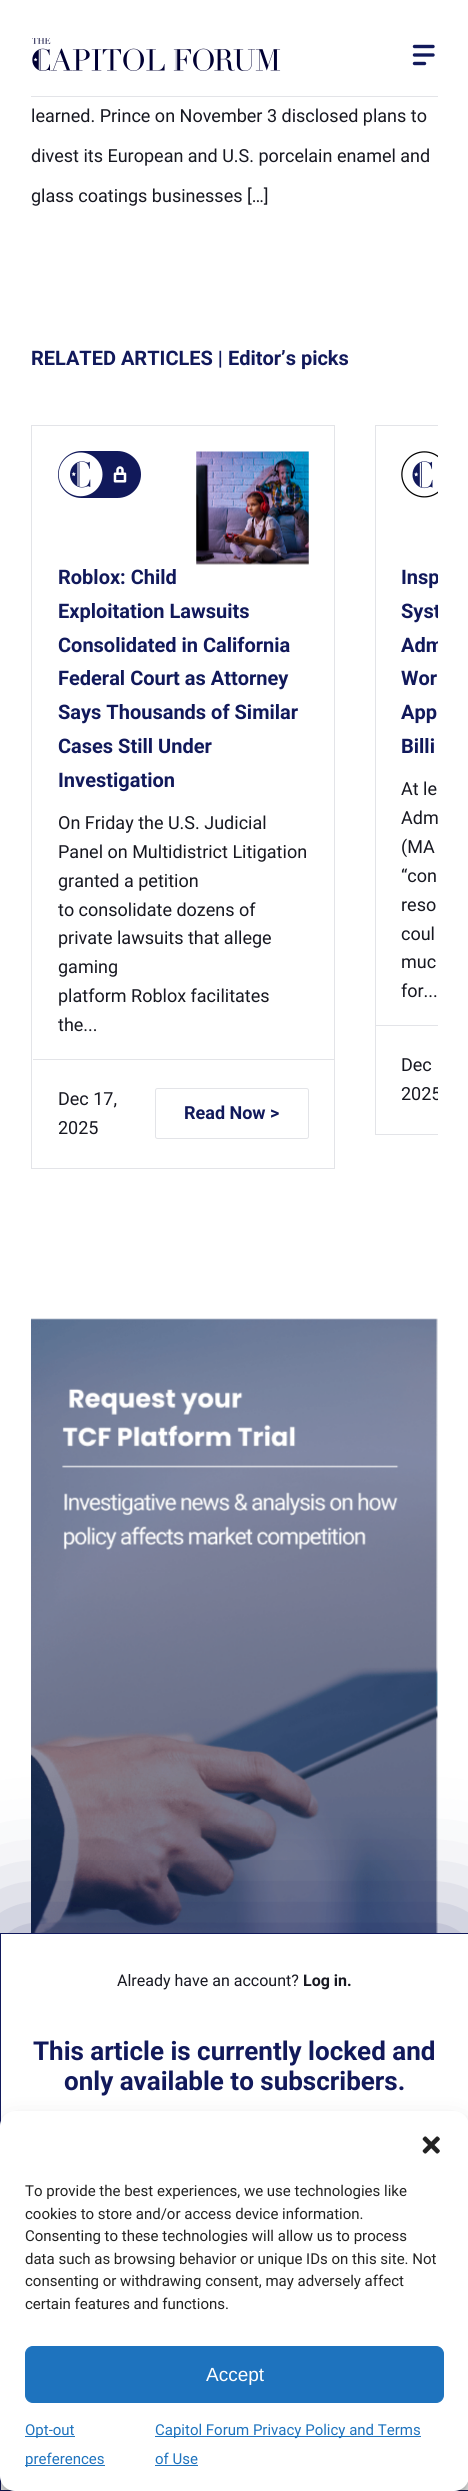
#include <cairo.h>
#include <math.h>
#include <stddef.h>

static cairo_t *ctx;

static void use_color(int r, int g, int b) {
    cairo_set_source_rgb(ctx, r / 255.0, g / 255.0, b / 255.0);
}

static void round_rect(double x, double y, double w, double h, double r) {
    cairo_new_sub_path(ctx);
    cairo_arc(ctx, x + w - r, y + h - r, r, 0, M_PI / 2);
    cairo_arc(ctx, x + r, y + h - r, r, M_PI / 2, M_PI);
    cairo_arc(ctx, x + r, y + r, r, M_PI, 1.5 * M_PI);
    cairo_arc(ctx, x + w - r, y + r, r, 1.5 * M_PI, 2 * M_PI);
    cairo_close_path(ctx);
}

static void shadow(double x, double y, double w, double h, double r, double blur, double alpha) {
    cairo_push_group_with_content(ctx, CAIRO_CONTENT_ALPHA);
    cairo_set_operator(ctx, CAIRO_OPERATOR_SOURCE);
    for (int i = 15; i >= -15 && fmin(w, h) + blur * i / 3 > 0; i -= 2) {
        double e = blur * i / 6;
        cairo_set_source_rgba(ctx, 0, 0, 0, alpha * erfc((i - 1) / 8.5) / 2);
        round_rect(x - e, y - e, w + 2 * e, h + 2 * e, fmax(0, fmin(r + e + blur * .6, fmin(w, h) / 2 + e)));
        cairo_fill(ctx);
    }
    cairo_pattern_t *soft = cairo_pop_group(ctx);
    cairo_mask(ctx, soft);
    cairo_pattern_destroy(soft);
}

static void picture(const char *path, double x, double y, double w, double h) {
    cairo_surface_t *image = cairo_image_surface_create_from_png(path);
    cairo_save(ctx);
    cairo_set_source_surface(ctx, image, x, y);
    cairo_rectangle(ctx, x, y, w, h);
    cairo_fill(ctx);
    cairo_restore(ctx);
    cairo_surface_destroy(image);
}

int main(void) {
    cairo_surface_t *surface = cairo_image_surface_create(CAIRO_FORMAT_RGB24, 468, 2491);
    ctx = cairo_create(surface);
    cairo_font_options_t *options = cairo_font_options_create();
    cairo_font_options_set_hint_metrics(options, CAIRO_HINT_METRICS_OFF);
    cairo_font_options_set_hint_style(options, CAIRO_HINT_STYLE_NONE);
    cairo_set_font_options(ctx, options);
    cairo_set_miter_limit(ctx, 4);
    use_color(255, 255, 255);
    cairo_paint(ctx);
    picture("img1.png", 32, 38, 249, 33);
    cairo_new_path(ctx);
    cairo_move_to(ctx, 414.5, 46.5);
    cairo_line_to(ctx, 433, 46.5);
    cairo_move_to(ctx, 414.5, 55);
    cairo_line_to(ctx, 433, 55);
    cairo_move_to(ctx, 414.5, 63.5);
    cairo_line_to(ctx, 424.5, 63.5);
    use_color(17, 25, 91);
    cairo_set_line_width(ctx, 3.4);
    cairo_set_line_cap(ctx, CAIRO_LINE_CAP_ROUND);
    cairo_stroke(ctx);
    use_color(227, 228, 232);
    cairo_rectangle(ctx, 31, 96, 407, 1);
    cairo_fill(ctx);
    cairo_select_font_face(ctx, "Roboto", CAIRO_FONT_SLANT_NORMAL, CAIRO_FONT_WEIGHT_NORMAL);
    cairo_set_font_size(ctx, 18);
    use_color(23, 24, 33);
    cairo_move_to(ctx, 31, 122);
    cairo_show_text(ctx, "learned. Prince on November 3 disclosed plans to");
    cairo_move_to(ctx, 31, 162);
    cairo_show_text(ctx, "divest its European and U.S. porcelain enamel and");
    cairo_move_to(ctx, 31, 202);
    cairo_show_text(ctx, "glass coatings businesses […]");
    cairo_select_font_face(ctx, "Roboto", CAIRO_FONT_SLANT_NORMAL, CAIRO_FONT_WEIGHT_BOLD);
    cairo_set_font_size(ctx, 20);
    use_color(17, 25, 91);
    cairo_move_to(ctx, 31, 365);
    cairo_show_text(ctx, "RELATED ARTICLES | Editor’s picks");
    cairo_rectangle(ctx, 31.5, 425.5, 303, 743);
    use_color(227, 228, 232);
    cairo_set_line_width(ctx, 1);
    cairo_set_line_cap(ctx, CAIRO_LINE_CAP_BUTT);
    cairo_stroke(ctx);
    picture("img2.png", 58, 451, 83, 47);
    picture("img3.png", 196, 451, 113, 114);
    use_color(17, 25, 91);
    cairo_move_to(ctx, 58, 584);
    cairo_show_text(ctx, "Roblox: Child");
    cairo_move_to(ctx, 58, 618);
    cairo_show_text(ctx, "Exploitation Lawsuits");
    cairo_move_to(ctx, 58, 652);
    cairo_show_text(ctx, "Consolidated in California");
    cairo_move_to(ctx, 58, 685);
    cairo_show_text(ctx, "Federal Court as Attorney");
    cairo_move_to(ctx, 58, 719);
    cairo_show_text(ctx, "Says Thousands of Similar");
    cairo_move_to(ctx, 58, 753);
    cairo_show_text(ctx, "Cases Still Under");
    cairo_move_to(ctx, 58, 787);
    cairo_show_text(ctx, "Investigation");
    cairo_select_font_face(ctx, "Roboto", CAIRO_FONT_SLANT_NORMAL, CAIRO_FONT_WEIGHT_NORMAL);
    cairo_set_font_size(ctx, 18);
    use_color(23, 24, 33);
    cairo_move_to(ctx, 58, 829);
    cairo_show_text(ctx, "On Friday the U.S. Judicial");
    cairo_move_to(ctx, 58, 858);
    cairo_show_text(ctx, "Panel on Multidistrict Litigation");
    cairo_move_to(ctx, 58, 887);
    cairo_show_text(ctx, "granted a petition");
    cairo_move_to(ctx, 58, 916);
    cairo_show_text(ctx, "to consolidate dozens of");
    cairo_move_to(ctx, 58, 944);
    cairo_show_text(ctx, "private lawsuits that allege");
    cairo_move_to(ctx, 58, 973);
    cairo_show_text(ctx, "gaming");
    cairo_move_to(ctx, 58, 1002);
    cairo_show_text(ctx, "platform Roblox facilitates");
    cairo_move_to(ctx, 58, 1031);
    cairo_show_text(ctx, "the...");
    use_color(227, 228, 232);
    cairo_rectangle(ctx, 33, 1059, 301, 1);
    cairo_fill(ctx);
    use_color(23, 24, 33);
    cairo_move_to(ctx, 58, 1105);
    cairo_show_text(ctx, "Dec 17,");
    cairo_move_to(ctx, 58, 1134);
    cairo_show_text(ctx, "2025");
    round_rect(155.5, 1088.5, 153, 50, 2);
    use_color(227, 228, 232);
    cairo_stroke(ctx);
    cairo_select_font_face(ctx, "Roboto", CAIRO_FONT_SLANT_NORMAL, CAIRO_FONT_WEIGHT_BOLD);
    use_color(17, 25, 91);
    cairo_move_to(ctx, 184, 1119);
    cairo_show_text(ctx, "Read Now >");
    cairo_save(ctx);
    cairo_rectangle(ctx, 31, 425, 407, 794);
    cairo_clip(ctx);
    cairo_rectangle(ctx, 375.5, 425.5, 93, 709);
    use_color(227, 228, 232);
    cairo_stroke(ctx);
    cairo_restore(ctx);
    picture("img4.png", 401, 451, 37, 47);
    cairo_save(ctx);
    cairo_rectangle(ctx, 31, 425, 407, 794);
    cairo_clip(ctx);
    cairo_set_font_size(ctx, 20);
    cairo_move_to(ctx, 401, 584);
    cairo_show_text(ctx, "Insp");
    cairo_move_to(ctx, 401, 618);
    cairo_show_text(ctx, "Syst");
    cairo_move_to(ctx, 401, 652);
    cairo_show_text(ctx, "Adm");
    cairo_restore(ctx);
    cairo_set_font_size(ctx, 20);
    cairo_move_to(ctx, 401, 685);
    cairo_show_text(ctx, "Wor");
    cairo_move_to(ctx, 401, 719);
    cairo_show_text(ctx, "App");
    cairo_move_to(ctx, 401, 753);
    cairo_show_text(ctx, "Billi");
    cairo_select_font_face(ctx, "Roboto", CAIRO_FONT_SLANT_NORMAL, CAIRO_FONT_WEIGHT_NORMAL);
    cairo_set_font_size(ctx, 18);
    use_color(23, 24, 33);
    cairo_move_to(ctx, 401, 795);
    cairo_show_text(ctx, "At le");
    cairo_move_to(ctx, 401, 824);
    cairo_show_text(ctx, "Adm");
    cairo_move_to(ctx, 401, 853);
    cairo_show_text(ctx, "(MA");
    cairo_move_to(ctx, 401, 882);
    cairo_show_text(ctx, "“con");
    cairo_move_to(ctx, 401, 911);
    cairo_show_text(ctx, "reso");
    cairo_move_to(ctx, 401, 940);
    cairo_show_text(ctx, "coul");
    cairo_move_to(ctx, 401, 968);
    cairo_show_text(ctx, "muc");
    cairo_move_to(ctx, 401, 997);
    cairo_show_text(ctx, "for...");
    use_color(227, 228, 232);
    cairo_rectangle(ctx, 376, 1025, 62, 1);
    cairo_fill(ctx);
    use_color(23, 24, 33);
    cairo_move_to(ctx, 401, 1071);
    cairo_show_text(ctx, "Dec");
    cairo_save(ctx);
    cairo_rectangle(ctx, 31, 425, 407, 794);
    cairo_clip(ctx);
    cairo_move_to(ctx, 401, 1100);
    cairo_show_text(ctx, "2025");
    cairo_restore(ctx);
    picture("img5.png", 31, 1318, 407, 615);
    use_color(17, 25, 91);
    shadow(0, 1933, 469, 558, 0, 62.5, 0.5);
    use_color(255, 255, 255);
    cairo_rectangle(ctx, 0.5, 1933.5, 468, 557);
    cairo_fill_preserve(ctx);
    use_color(17, 25, 91);
    cairo_stroke(ctx);
    cairo_set_font_size(ctx, 16);
    use_color(23, 24, 33);
    cairo_move_to(ctx, 117, 1986);
    cairo_show_text(ctx, "Already have an account?");
    cairo_select_font_face(ctx, "Roboto", CAIRO_FONT_SLANT_NORMAL, CAIRO_FONT_WEIGHT_BOLD);
    cairo_move_to(ctx, 303, 1986);
    cairo_show_text(ctx, "Log in.");
    cairo_set_font_size(ctx, 26);
    use_color(17, 25, 91);
    cairo_move_to(ctx, 33, 2060);
    cairo_show_text(ctx, "This article is currently locked and");
    cairo_move_to(ctx, 64, 2090);
    cairo_show_text(ctx, "only available to subscribers.");
    use_color(0, 0, 0);
    shadow(0, 2119, 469, 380, 15, 4, 0.23);
    shadow(0, 2124, 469, 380, 15, 12.5, 0.19);
    use_color(255, 255, 255);
    round_rect(0, 2111, 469, 380, 15);
    cairo_fill(ctx);
    picture("img6.png", 422, 2136, 18, 18);
    cairo_select_font_face(ctx, "Roboto", CAIRO_FONT_SLANT_NORMAL, CAIRO_FONT_WEIGHT_NORMAL);
    cairo_set_font_size(ctx, 15);
    use_color(34, 34, 34);
    cairo_move_to(ctx, 25, 2196);
    cairo_show_text(ctx, "To provide the best experiences, we use technologies like");
    cairo_move_to(ctx, 25, 2219);
    cairo_show_text(ctx, "cookies to store and/or access device information.");
    cairo_move_to(ctx, 25, 2241);
    cairo_show_text(ctx, "Consenting to these technologies will allow us to process");
    cairo_move_to(ctx, 25, 2264);
    cairo_show_text(ctx, "data such as browsing behavior or unique IDs on this site. Not");
    cairo_move_to(ctx, 25, 2286);
    cairo_show_text(ctx, "consenting or withdrawing consent, may adversely affect");
    cairo_move_to(ctx, 25, 2309);
    cairo_show_text(ctx, "certain features and functions.");
    use_color(30, 115, 190);
    round_rect(25.5, 2346.5, 418, 56, 7.5);
    cairo_fill_preserve(ctx);
    cairo_stroke(ctx);
    cairo_select_font_face(ctx, "Liberation Sans", CAIRO_FONT_SLANT_NORMAL, CAIRO_FONT_WEIGHT_NORMAL);
    cairo_set_font_size(ctx, 19);
    use_color(255, 255, 255);
    cairo_move_to(ctx, 206, 2381);
    cairo_show_text(ctx, "Accept");
    use_color(30, 115, 190);
    cairo_rectangle(ctx, 25, 2436, 50, 1);
    cairo_fill(ctx);
    cairo_select_font_face(ctx, "Roboto", CAIRO_FONT_SLANT_NORMAL, CAIRO_FONT_WEIGHT_NORMAL);
    cairo_set_font_size(ctx, 15);
    cairo_move_to(ctx, 25, 2435);
    cairo_show_text(ctx, "Opt-out");
    cairo_rectangle(ctx, 25, 2465, 80, 1);
    cairo_fill(ctx);
    cairo_move_to(ctx, 25, 2464);
    cairo_show_text(ctx, "preferences");
    cairo_rectangle(ctx, 155, 2436, 266, 1);
    cairo_fill(ctx);
    cairo_move_to(ctx, 155, 2435);
    cairo_show_text(ctx, "Capitol Forum Privacy Policy and Terms");
    cairo_move_to(ctx, 155, 2464);
    cairo_show_text(ctx, "of Use");
    cairo_rectangle(ctx, 155, 2465, 43, 1);
    cairo_fill(ctx);
    cairo_surface_write_to_png(surface, "result.png");
    cairo_font_options_destroy(options);
    cairo_destroy(ctx);
    cairo_surface_destroy(surface);
    return 0;
}
